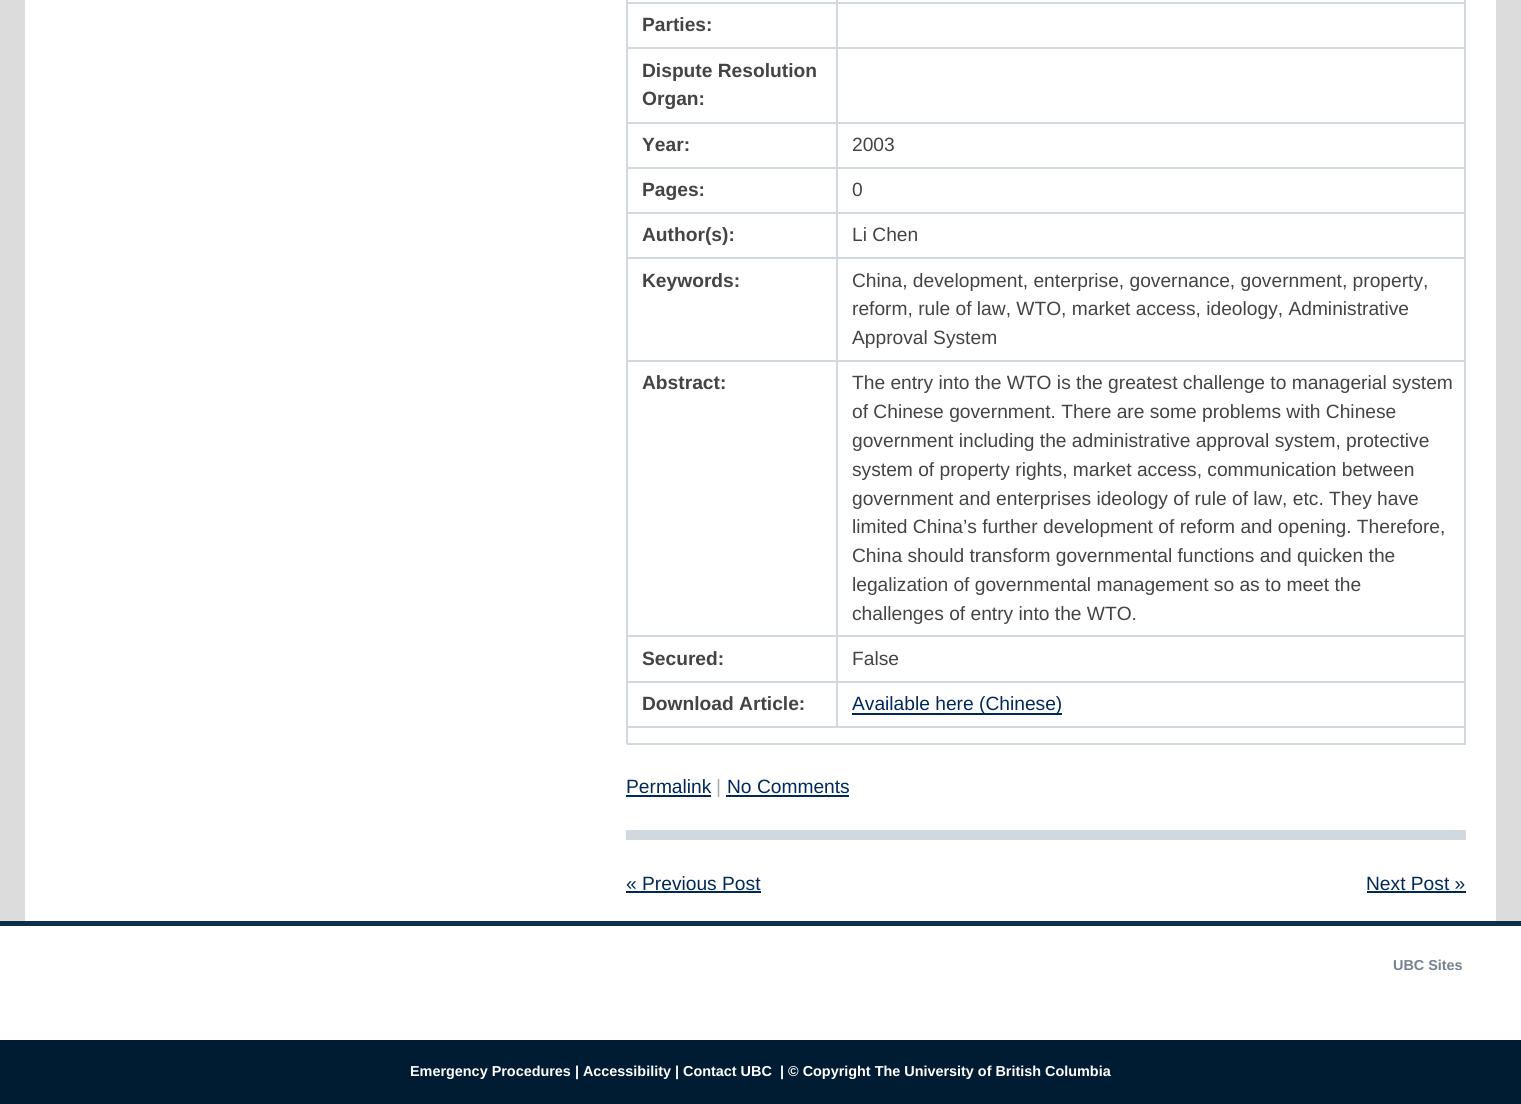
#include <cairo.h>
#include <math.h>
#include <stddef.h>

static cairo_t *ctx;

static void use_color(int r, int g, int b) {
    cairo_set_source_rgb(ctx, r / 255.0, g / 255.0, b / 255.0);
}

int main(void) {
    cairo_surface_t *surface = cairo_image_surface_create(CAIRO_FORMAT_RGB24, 1521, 1104);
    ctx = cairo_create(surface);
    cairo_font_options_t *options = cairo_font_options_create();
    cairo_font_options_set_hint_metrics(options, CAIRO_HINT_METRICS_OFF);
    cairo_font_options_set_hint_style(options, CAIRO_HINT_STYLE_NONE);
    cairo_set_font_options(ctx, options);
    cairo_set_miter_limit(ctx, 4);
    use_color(220, 220, 220);
    cairo_paint(ctx);
    use_color(255, 255, 255);
    cairo_rectangle(ctx, 25, 0, 1471, 921);
    cairo_fill(ctx);
    use_color(209, 217, 222);
    cairo_rectangle(ctx, 626, 0, 2, 744);
    cairo_fill(ctx);
    cairo_rectangle(ctx, 836, 0, 2, 3);
    cairo_fill(ctx);
    cairo_rectangle(ctx, 627, 2, 210, 2);
    cairo_fill(ctx);
    cairo_rectangle(ctx, 1464, 0, 2, 3);
    cairo_fill(ctx);
    cairo_rectangle(ctx, 837, 2, 629, 2);
    cairo_fill(ctx);
    cairo_rectangle(ctx, 836, 3, 2, 45);
    cairo_fill(ctx);
    cairo_rectangle(ctx, 627, 47, 210, 2);
    cairo_fill(ctx);
    cairo_select_font_face(ctx, "Liberation Sans", CAIRO_FONT_SLANT_NORMAL, CAIRO_FONT_WEIGHT_BOLD);
    cairo_set_font_size(ctx, 19.2);
    use_color(68, 68, 68);
    cairo_move_to(ctx, 642, 31);
    cairo_show_text(ctx, "Parties:");
    use_color(209, 217, 222);
    cairo_rectangle(ctx, 1464, 3, 2, 45);
    cairo_fill(ctx);
    cairo_rectangle(ctx, 837, 47, 629, 2);
    cairo_fill(ctx);
    cairo_rectangle(ctx, 836, 48, 2, 75);
    cairo_fill(ctx);
    cairo_rectangle(ctx, 627, 122, 210, 2);
    cairo_fill(ctx);
    use_color(68, 68, 68);
    cairo_move_to(ctx, 642, 77);
    cairo_show_text(ctx, "Dispute Resolution");
    cairo_move_to(ctx, 642, 105);
    cairo_show_text(ctx, "Organ:");
    use_color(209, 217, 222);
    cairo_rectangle(ctx, 1464, 48, 2, 75);
    cairo_fill(ctx);
    cairo_rectangle(ctx, 837, 122, 629, 2);
    cairo_fill(ctx);
    cairo_rectangle(ctx, 836, 123, 2, 45);
    cairo_fill(ctx);
    cairo_rectangle(ctx, 627, 167, 210, 2);
    cairo_fill(ctx);
    use_color(68, 68, 68);
    cairo_move_to(ctx, 642, 151);
    cairo_show_text(ctx, "Year:");
    use_color(209, 217, 222);
    cairo_rectangle(ctx, 1464, 123, 2, 45);
    cairo_fill(ctx);
    cairo_rectangle(ctx, 837, 167, 629, 2);
    cairo_fill(ctx);
    cairo_select_font_face(ctx, "Liberation Sans", CAIRO_FONT_SLANT_NORMAL, CAIRO_FONT_WEIGHT_NORMAL);
    use_color(68, 68, 68);
    cairo_move_to(ctx, 852, 151);
    cairo_show_text(ctx, "2003");
    use_color(209, 217, 222);
    cairo_rectangle(ctx, 836, 168, 2, 45);
    cairo_fill(ctx);
    cairo_rectangle(ctx, 627, 212, 210, 2);
    cairo_fill(ctx);
    cairo_select_font_face(ctx, "Liberation Sans", CAIRO_FONT_SLANT_NORMAL, CAIRO_FONT_WEIGHT_BOLD);
    use_color(68, 68, 68);
    cairo_move_to(ctx, 642, 196);
    cairo_show_text(ctx, "Pages:");
    use_color(209, 217, 222);
    cairo_rectangle(ctx, 1464, 168, 2, 45);
    cairo_fill(ctx);
    cairo_rectangle(ctx, 837, 212, 629, 2);
    cairo_fill(ctx);
    cairo_select_font_face(ctx, "Liberation Sans", CAIRO_FONT_SLANT_NORMAL, CAIRO_FONT_WEIGHT_NORMAL);
    use_color(68, 68, 68);
    cairo_move_to(ctx, 852, 196);
    cairo_show_text(ctx, "0");
    use_color(209, 217, 222);
    cairo_rectangle(ctx, 836, 213, 2, 45);
    cairo_fill(ctx);
    cairo_rectangle(ctx, 627, 257, 210, 2);
    cairo_fill(ctx);
    cairo_select_font_face(ctx, "Liberation Sans", CAIRO_FONT_SLANT_NORMAL, CAIRO_FONT_WEIGHT_BOLD);
    use_color(68, 68, 68);
    cairo_move_to(ctx, 642, 241);
    cairo_show_text(ctx, "Author(s):");
    use_color(209, 217, 222);
    cairo_rectangle(ctx, 1464, 213, 2, 45);
    cairo_fill(ctx);
    cairo_rectangle(ctx, 837, 257, 629, 2);
    cairo_fill(ctx);
    cairo_select_font_face(ctx, "Liberation Sans", CAIRO_FONT_SLANT_NORMAL, CAIRO_FONT_WEIGHT_NORMAL);
    use_color(68, 68, 68);
    cairo_move_to(ctx, 852, 241);
    cairo_show_text(ctx, "Li Chen");
    use_color(209, 217, 222);
    cairo_rectangle(ctx, 836, 258, 2, 378);
    cairo_fill(ctx);
    cairo_rectangle(ctx, 627, 360, 210, 2);
    cairo_fill(ctx);
    cairo_select_font_face(ctx, "Liberation Sans", CAIRO_FONT_SLANT_NORMAL, CAIRO_FONT_WEIGHT_BOLD);
    use_color(68, 68, 68);
    cairo_move_to(ctx, 642, 287);
    cairo_show_text(ctx, "Keywords:");
    use_color(209, 217, 222);
    cairo_rectangle(ctx, 1464, 258, 2, 378);
    cairo_fill(ctx);
    cairo_rectangle(ctx, 837, 360, 629, 2);
    cairo_fill(ctx);
    cairo_select_font_face(ctx, "Liberation Sans", CAIRO_FONT_SLANT_NORMAL, CAIRO_FONT_WEIGHT_NORMAL);
    use_color(68, 68, 68);
    cairo_move_to(ctx, 852, 287);
    cairo_show_text(ctx, "China, development, enterprise, governance, government, property,");
    cairo_move_to(ctx, 852, 315);
    cairo_show_text(ctx, "reform, rule of law, WTO, market access, ideology, Administrative");
    cairo_move_to(ctx, 852, 344);
    cairo_show_text(ctx, "Approval System");
    use_color(209, 217, 222);
    cairo_rectangle(ctx, 627, 635, 839, 2);
    cairo_fill(ctx);
    cairo_select_font_face(ctx, "Liberation Sans", CAIRO_FONT_SLANT_NORMAL, CAIRO_FONT_WEIGHT_BOLD);
    use_color(68, 68, 68);
    cairo_move_to(ctx, 642, 389);
    cairo_show_text(ctx, "Abstract:");
    cairo_select_font_face(ctx, "Liberation Sans", CAIRO_FONT_SLANT_NORMAL, CAIRO_FONT_WEIGHT_NORMAL);
    cairo_move_to(ctx, 852, 389);
    cairo_show_text(ctx, "The entry into the WTO is the greatest challenge to managerial system");
    cairo_move_to(ctx, 852, 418);
    cairo_show_text(ctx, "of Chinese government. There are some problems with Chinese");
    cairo_move_to(ctx, 852, 447);
    cairo_show_text(ctx, "government including the administrative approval system, protective");
    cairo_move_to(ctx, 852, 476);
    cairo_show_text(ctx, "system of property rights, market access, communication between");
    cairo_move_to(ctx, 852, 505);
    cairo_show_text(ctx, "government and enterprises ideology of rule of law, etc. They have");
    cairo_move_to(ctx, 852, 533);
    cairo_show_text(ctx, "limited China’s further development of reform and opening. Therefore,");
    cairo_move_to(ctx, 852, 562);
    cairo_show_text(ctx, "China should transform governmental functions and quicken the");
    cairo_move_to(ctx, 852, 591);
    cairo_show_text(ctx, "legalization of governmental management so as to meet the");
    cairo_move_to(ctx, 852, 620);
    cairo_show_text(ctx, "challenges of entry into the WTO.");
    use_color(209, 217, 222);
    cairo_rectangle(ctx, 836, 636, 2, 92);
    cairo_fill(ctx);
    cairo_rectangle(ctx, 627, 681, 210, 2);
    cairo_fill(ctx);
    cairo_select_font_face(ctx, "Liberation Sans", CAIRO_FONT_SLANT_NORMAL, CAIRO_FONT_WEIGHT_BOLD);
    use_color(68, 68, 68);
    cairo_move_to(ctx, 642, 665);
    cairo_show_text(ctx, "Secured:");
    use_color(209, 217, 222);
    cairo_rectangle(ctx, 1464, 636, 2, 108);
    cairo_fill(ctx);
    cairo_rectangle(ctx, 837, 681, 629, 2);
    cairo_fill(ctx);
    cairo_select_font_face(ctx, "Liberation Sans", CAIRO_FONT_SLANT_NORMAL, CAIRO_FONT_WEIGHT_NORMAL);
    use_color(68, 68, 68);
    cairo_move_to(ctx, 852, 665);
    cairo_show_text(ctx, "False");
    use_color(209, 217, 222);
    cairo_rectangle(ctx, 627, 726, 839, 2);
    cairo_fill(ctx);
    cairo_select_font_face(ctx, "Liberation Sans", CAIRO_FONT_SLANT_NORMAL, CAIRO_FONT_WEIGHT_BOLD);
    use_color(68, 68, 68);
    cairo_move_to(ctx, 642, 710);
    cairo_show_text(ctx, "Download Article:");
    use_color(0, 40, 89);
    cairo_rectangle(ctx, 852, 713, 210, 2);
    cairo_fill(ctx);
    cairo_select_font_face(ctx, "Liberation Sans", CAIRO_FONT_SLANT_NORMAL, CAIRO_FONT_WEIGHT_NORMAL);
    cairo_move_to(ctx, 852, 710);
    cairo_show_text(ctx, "Available here (Chinese)");
    use_color(209, 217, 222);
    cairo_rectangle(ctx, 627, 743, 839, 2);
    cairo_fill(ctx);
    use_color(0, 40, 89);
    cairo_move_to(ctx, 626, 793);
    cairo_show_text(ctx, "Permalink");
    cairo_rectangle(ctx, 626, 795, 85, 2);
    cairo_fill(ctx);
    use_color(170, 170, 170);
    cairo_move_to(ctx, 716, 793);
    cairo_show_text(ctx, "|");
    use_color(0, 40, 89);
    cairo_move_to(ctx, 727, 793);
    cairo_show_text(ctx, "No Comments");
    cairo_rectangle(ctx, 726, 795, 123, 2);
    cairo_fill(ctx);
    use_color(209, 217, 222);
    cairo_rectangle(ctx, 626, 830, 840, 10);
    cairo_fill(ctx);
    use_color(0, 40, 89);
    cairo_move_to(ctx, 626, 890);
    cairo_show_text(ctx, "« Previous Post");
    cairo_rectangle(ctx, 626, 891, 135, 2);
    cairo_fill(ctx);
    cairo_move_to(ctx, 1366, 890);
    cairo_show_text(ctx, "Next Post »");
    cairo_rectangle(ctx, 1367, 891, 99, 2);
    cairo_fill(ctx);
    use_color(255, 255, 255);
    cairo_rectangle(ctx, 0, 926, 1521, 114);
    cairo_fill(ctx);
    use_color(14, 47, 73);
    cairo_rectangle(ctx, 0, 921, 1521, 5);
    cairo_fill(ctx);
    cairo_select_font_face(ctx, "Liberation Sans", CAIRO_FONT_SLANT_NORMAL, CAIRO_FONT_WEIGHT_BOLD);
    cairo_set_font_size(ctx, 14.4);
    use_color(117, 130, 145);
    cairo_move_to(ctx, 1393, 970);
    cairo_show_text(ctx, "UBC Sites");
    use_color(0, 28, 51);
    cairo_rectangle(ctx, 0, 1040, 1521, 64);
    cairo_fill(ctx);
    use_color(255, 255, 255);
    cairo_move_to(ctx, 410, 1076);
    cairo_show_text(ctx, "Emergency Procedures | Accessibility | Contact UBC");
    cairo_move_to(ctx, 780, 1076);
    cairo_show_text(ctx, "| © Copyright The University of British Columbia");
    cairo_surface_write_to_png(surface, "result.png");
    cairo_font_options_destroy(options);
    cairo_destroy(ctx);
    cairo_surface_destroy(surface);
    return 0;
}
